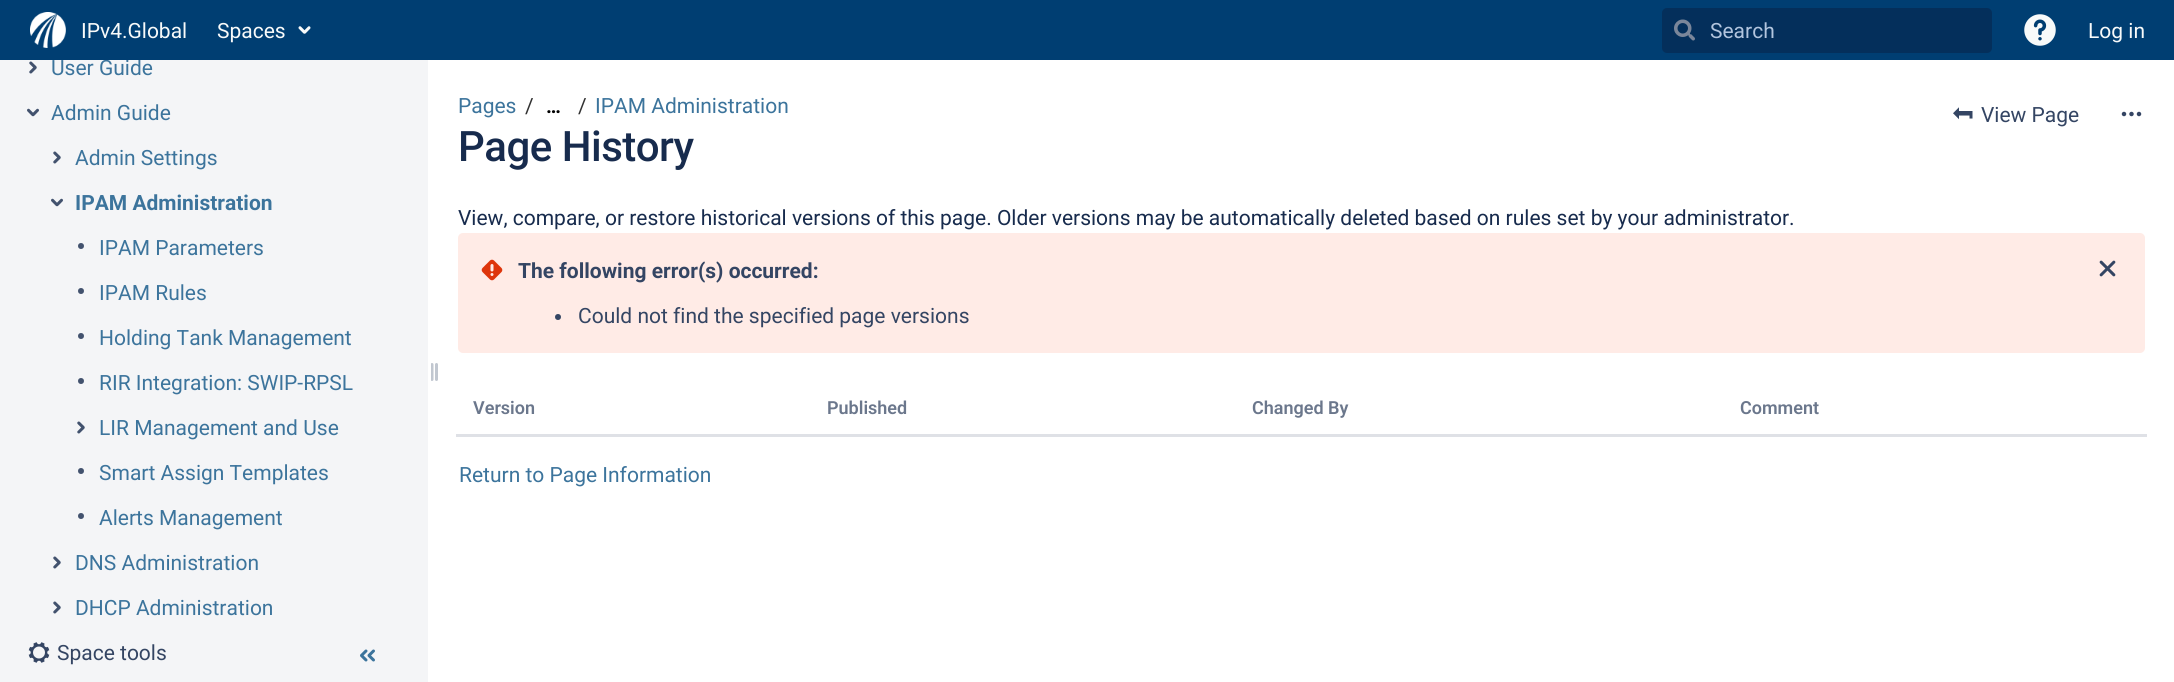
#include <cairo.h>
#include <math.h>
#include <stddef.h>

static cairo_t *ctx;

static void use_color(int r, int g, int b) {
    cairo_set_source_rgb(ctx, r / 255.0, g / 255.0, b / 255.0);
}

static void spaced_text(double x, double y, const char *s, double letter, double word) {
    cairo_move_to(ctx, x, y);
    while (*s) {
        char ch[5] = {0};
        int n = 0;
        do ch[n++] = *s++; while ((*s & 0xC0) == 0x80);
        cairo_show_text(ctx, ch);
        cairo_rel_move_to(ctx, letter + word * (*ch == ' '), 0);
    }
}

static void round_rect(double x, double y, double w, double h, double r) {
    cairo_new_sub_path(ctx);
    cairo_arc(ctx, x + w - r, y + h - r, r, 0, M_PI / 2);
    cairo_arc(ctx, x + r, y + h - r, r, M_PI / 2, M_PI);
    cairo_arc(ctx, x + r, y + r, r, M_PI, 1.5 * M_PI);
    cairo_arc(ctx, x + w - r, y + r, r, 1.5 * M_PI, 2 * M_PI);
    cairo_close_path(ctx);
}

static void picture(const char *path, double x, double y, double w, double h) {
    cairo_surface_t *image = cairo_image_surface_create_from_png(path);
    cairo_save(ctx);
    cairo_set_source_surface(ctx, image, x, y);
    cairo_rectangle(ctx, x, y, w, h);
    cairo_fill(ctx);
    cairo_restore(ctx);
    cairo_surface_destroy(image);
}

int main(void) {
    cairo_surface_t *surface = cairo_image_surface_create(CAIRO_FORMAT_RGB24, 2174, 682);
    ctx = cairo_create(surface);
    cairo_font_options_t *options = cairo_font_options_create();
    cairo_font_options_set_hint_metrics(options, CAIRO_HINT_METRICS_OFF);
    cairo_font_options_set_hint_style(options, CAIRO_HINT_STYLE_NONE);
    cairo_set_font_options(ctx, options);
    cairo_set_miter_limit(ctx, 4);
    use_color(244, 245, 247);
    cairo_paint(ctx);
    use_color(0, 62, 114);
    cairo_rectangle(ctx, 0, 0, 2174, 60);
    cairo_fill(ctx);
    picture("img1.png", 30, 12, 36, 36);
    cairo_select_font_face(ctx, "Roboto", CAIRO_FONT_SLANT_NORMAL, CAIRO_FONT_WEIGHT_NORMAL);
    cairo_set_font_size(ctx, 21);
    use_color(248, 250, 250);
    cairo_move_to(ctx, 81, 38);
    cairo_show_text(ctx, "IPv4.Global");
    cairo_move_to(ctx, 217, 38);
    cairo_show_text(ctx, "Spaces");
    picture("img2.png", 298, 26, 13, 8);
    use_color(4, 47, 91);
    round_rect(1662, 8, 330, 45, 5);
    cairo_fill(ctx);
    picture("img3.png", 1674, 19, 21, 22);
    use_color(178, 197, 222);
    cairo_move_to(ctx, 1710, 38);
    cairo_show_text(ctx, "Search");
    picture("img4.png", 2024, 14, 32, 32);
    use_color(248, 250, 250);
    cairo_move_to(ctx, 2088, 38);
    cairo_show_text(ctx, "Log in");
    picture("img5.png", 29, 61, 8, 13);
    cairo_save(ctx);
    cairo_rectangle(ctx, 51, 60, 333, 23);
    cairo_clip(ctx);
    use_color(60, 116, 156);
    cairo_move_to(ctx, 51, 75);
    cairo_show_text(ctx, "User Guide");
    cairo_restore(ctx);
    picture("img6.png", 27, 108, 12, 9);
    use_color(60, 116, 156);
    cairo_move_to(ctx, 51, 120);
    cairo_show_text(ctx, "Admin Guide");
    picture("img5.png", 53, 151, 8, 13);
    cairo_move_to(ctx, 75, 165);
    cairo_show_text(ctx, "Admin Settings");
    picture("img6.png", 51, 198, 12, 9);
    cairo_select_font_face(ctx, "Roboto", CAIRO_FONT_SLANT_NORMAL, CAIRO_FONT_WEIGHT_BOLD);
    cairo_move_to(ctx, 75, 210);
    cairo_show_text(ctx, "IPAM Administration");
    use_color(66, 82, 110);
    cairo_new_path(ctx);
    cairo_arc(ctx, 81, 246, 3, 0, 2 * M_PI);
    cairo_fill(ctx);
    cairo_select_font_face(ctx, "Roboto", CAIRO_FONT_SLANT_NORMAL, CAIRO_FONT_WEIGHT_NORMAL);
    use_color(60, 116, 156);
    cairo_move_to(ctx, 99, 255);
    cairo_show_text(ctx, "IPAM Parameters");
    use_color(66, 82, 110);
    cairo_new_path(ctx);
    cairo_arc(ctx, 81, 291, 3, 0, 2 * M_PI);
    cairo_fill(ctx);
    use_color(60, 116, 156);
    cairo_move_to(ctx, 99, 300);
    cairo_show_text(ctx, "IPAM Rules");
    use_color(66, 82, 110);
    cairo_new_path(ctx);
    cairo_arc(ctx, 81, 336, 3, 0, 2 * M_PI);
    cairo_fill(ctx);
    use_color(60, 116, 156);
    cairo_move_to(ctx, 99, 345);
    cairo_show_text(ctx, "Holding Tank Management");
    use_color(66, 82, 110);
    cairo_new_path(ctx);
    cairo_arc(ctx, 81, 381, 3, 0, 2 * M_PI);
    cairo_fill(ctx);
    use_color(60, 116, 156);
    cairo_move_to(ctx, 99, 390);
    cairo_show_text(ctx, "RIR Integration: SWIP-RPSL");
    picture("img5.png", 77, 421, 8, 13);
    cairo_move_to(ctx, 99, 435);
    cairo_show_text(ctx, "LIR Management and Use");
    use_color(66, 82, 110);
    cairo_new_path(ctx);
    cairo_arc(ctx, 81, 471, 3, 0, 2 * M_PI);
    cairo_fill(ctx);
    use_color(60, 116, 156);
    cairo_move_to(ctx, 99, 480);
    cairo_show_text(ctx, "Smart Assign Templates");
    use_color(66, 82, 110);
    cairo_new_path(ctx);
    cairo_arc(ctx, 81, 516, 3, 0, 2 * M_PI);
    cairo_fill(ctx);
    use_color(60, 116, 156);
    cairo_move_to(ctx, 99, 525);
    cairo_show_text(ctx, "Alerts Management");
    picture("img5.png", 53, 556, 8, 13);
    cairo_move_to(ctx, 75, 570);
    cairo_show_text(ctx, "DNS Administration");
    picture("img5.png", 53, 601, 8, 13);
    cairo_move_to(ctx, 75, 615);
    cairo_show_text(ctx, "DHCP Administration");
    use_color(255, 255, 255);
    cairo_rectangle(ctx, 428, 60, 1746, 622);
    cairo_fill(ctx);
    picture("img7.png", 431, 363, 7, 18);
    picture("img8.png", 28, 642, 22, 21);
    use_color(52, 69, 99);
    cairo_move_to(ctx, 57, 660);
    cairo_show_text(ctx, "Space tools");
    picture("img9.png", 360, 649, 15, 13);
    use_color(60, 116, 156);
    cairo_move_to(ctx, 458, 113);
    cairo_show_text(ctx, "Pages");
    use_color(51, 51, 51);
    cairo_move_to(ctx, 525, 113);
    cairo_show_text(ctx, "/");
    cairo_select_font_face(ctx, "Roboto", CAIRO_FONT_SLANT_NORMAL, CAIRO_FONT_WEIGHT_BOLD);
    cairo_set_font_size(ctx, 20);
    use_color(0, 0, 0);
    cairo_move_to(ctx, 546, 113);
    cairo_show_text(ctx, "…");
    cairo_select_font_face(ctx, "Roboto", CAIRO_FONT_SLANT_NORMAL, CAIRO_FONT_WEIGHT_NORMAL);
    cairo_set_font_size(ctx, 21);
    use_color(51, 51, 51);
    cairo_move_to(ctx, 578, 113);
    cairo_show_text(ctx, "/");
    use_color(60, 116, 156);
    cairo_move_to(ctx, 595, 113);
    cairo_show_text(ctx, "IPAM Administration");
    cairo_select_font_face(ctx, "Roboto Medium", CAIRO_FONT_SLANT_NORMAL, CAIRO_FONT_WEIGHT_NORMAL);
    cairo_set_font_size(ctx, 42);
    use_color(23, 43, 77);
    spaced_text(458, 161, "Page History", -0.5, 0);
    picture("img10.png", 1953, 107, 20, 13);
    cairo_select_font_face(ctx, "Roboto", CAIRO_FONT_SLANT_NORMAL, CAIRO_FONT_WEIGHT_NORMAL);
    cairo_set_font_size(ctx, 21);
    use_color(52, 69, 99);
    cairo_move_to(ctx, 1981, 122);
    cairo_show_text(ctx, "View Page");
    picture("img11.png", 2121, 111, 21, 6);
    use_color(23, 43, 77);
    cairo_move_to(ctx, 458, 225);
    cairo_show_text(ctx, "View, compare, or restore historical versions of this page. Older versions may be automatically deleted based on rules set by your administrator.");
    use_color(255, 235, 230);
    round_rect(458, 233, 1687, 120, 5);
    cairo_fill(ctx);
    picture("img12.png", 481, 259, 22, 22);
    cairo_select_font_face(ctx, "Roboto", CAIRO_FONT_SLANT_NORMAL, CAIRO_FONT_WEIGHT_BOLD);
    use_color(52, 69, 99);
    cairo_move_to(ctx, 518, 278);
    cairo_show_text(ctx, "The following error(s) occurred:");
    picture("img13.png", 2099, 260, 17, 17);
    cairo_arc(ctx, 558, 317, 3, 0, 2 * M_PI);
    cairo_fill(ctx);
    cairo_select_font_face(ctx, "Roboto", CAIRO_FONT_SLANT_NORMAL, CAIRO_FONT_WEIGHT_NORMAL);
    cairo_move_to(ctx, 578, 323);
    cairo_show_text(ctx, "Could not find the specified page versions");
    use_color(223, 225, 230);
    cairo_rectangle(ctx, 456, 434, 1691, 3);
    cairo_fill(ctx);
    cairo_select_font_face(ctx, "Roboto SemiBold", CAIRO_FONT_SLANT_NORMAL, CAIRO_FONT_WEIGHT_NORMAL);
    cairo_set_font_size(ctx, 18);
    use_color(107, 119, 140);
    cairo_move_to(ctx, 473, 414);
    cairo_show_text(ctx, "Version");
    cairo_move_to(ctx, 827, 414);
    cairo_show_text(ctx, "Published");
    cairo_move_to(ctx, 1252, 414);
    cairo_show_text(ctx, "Changed By");
    cairo_move_to(ctx, 1740, 414);
    cairo_show_text(ctx, "Comment");
    cairo_select_font_face(ctx, "Roboto", CAIRO_FONT_SLANT_NORMAL, CAIRO_FONT_WEIGHT_NORMAL);
    cairo_set_font_size(ctx, 21);
    use_color(60, 116, 156);
    cairo_move_to(ctx, 459, 482);
    cairo_show_text(ctx, "Return to Page Information");
    cairo_surface_write_to_png(surface, "result.png");
    cairo_font_options_destroy(options);
    cairo_destroy(ctx);
    cairo_surface_destroy(surface);
    return 0;
}
